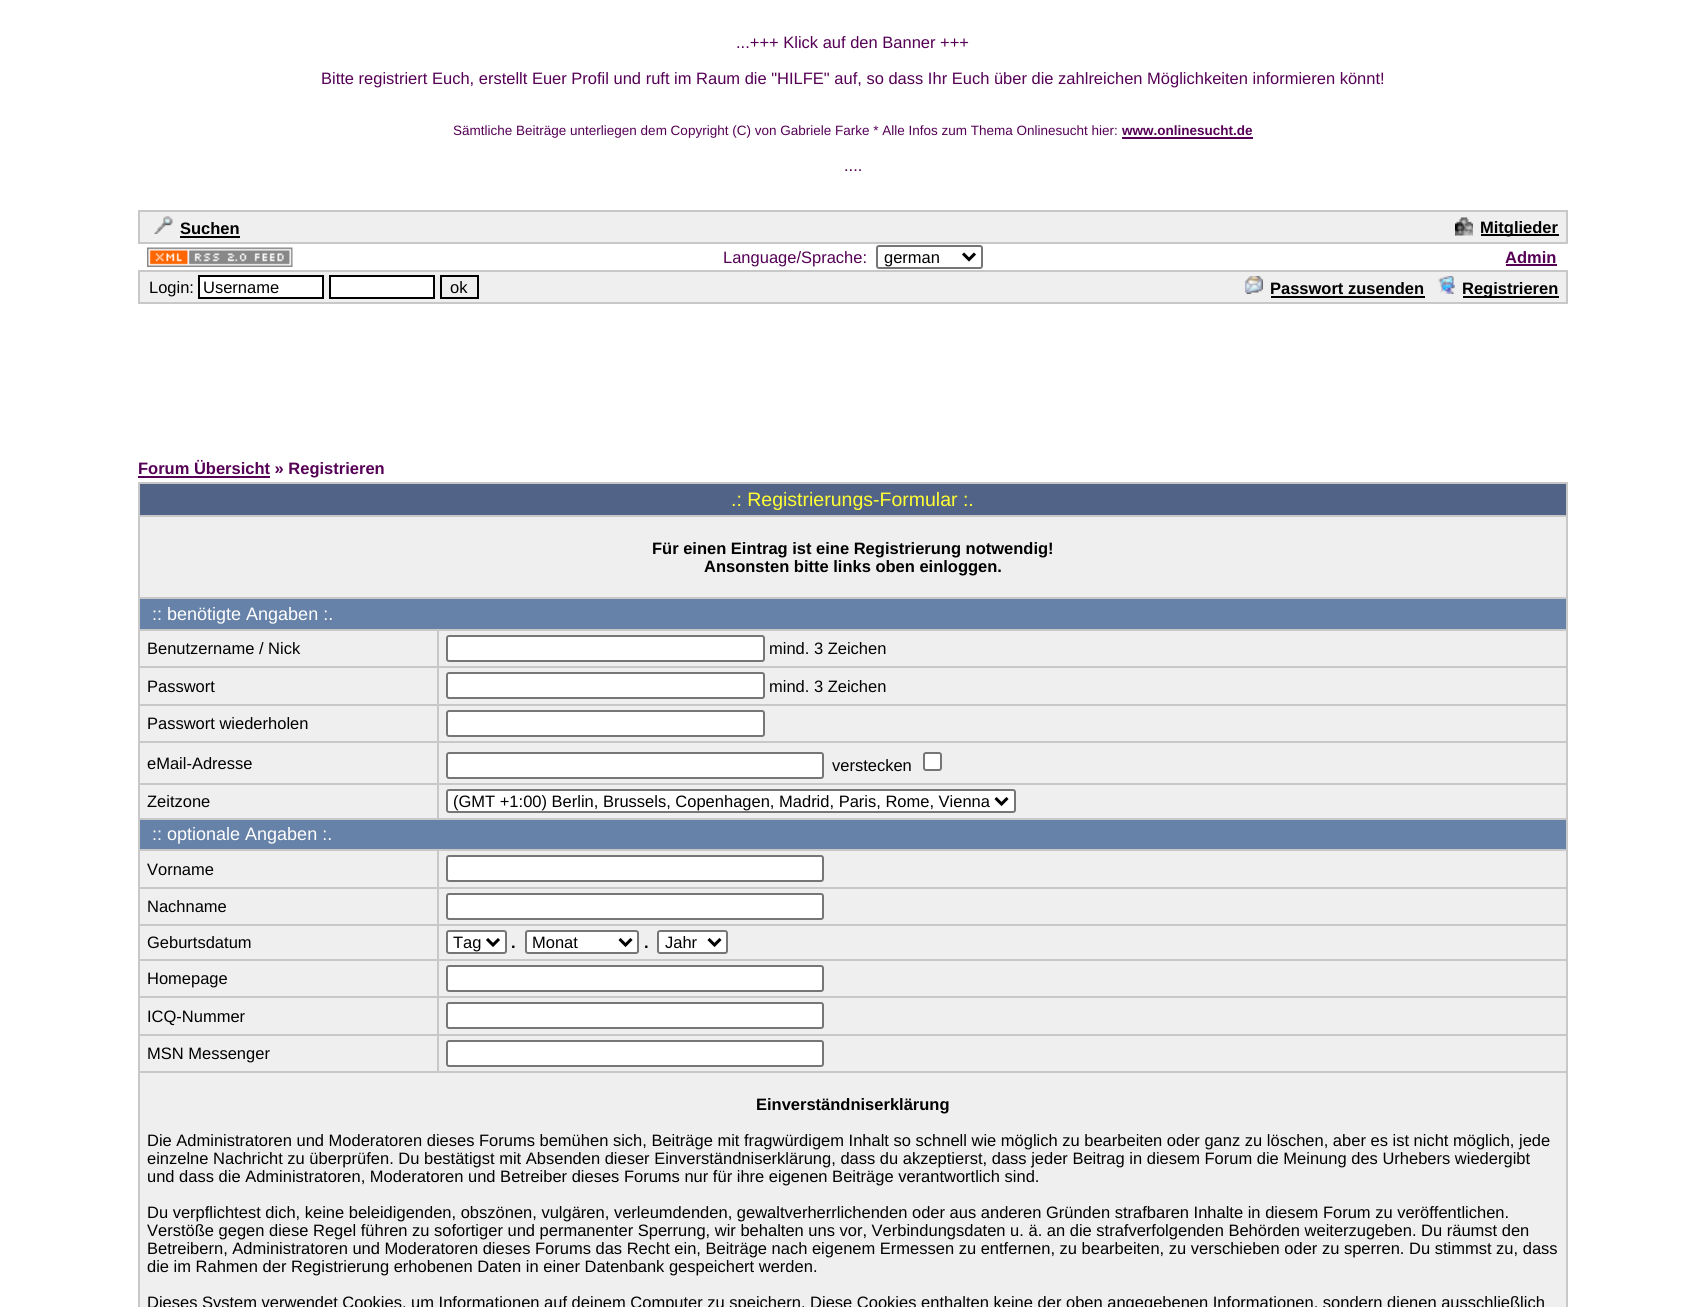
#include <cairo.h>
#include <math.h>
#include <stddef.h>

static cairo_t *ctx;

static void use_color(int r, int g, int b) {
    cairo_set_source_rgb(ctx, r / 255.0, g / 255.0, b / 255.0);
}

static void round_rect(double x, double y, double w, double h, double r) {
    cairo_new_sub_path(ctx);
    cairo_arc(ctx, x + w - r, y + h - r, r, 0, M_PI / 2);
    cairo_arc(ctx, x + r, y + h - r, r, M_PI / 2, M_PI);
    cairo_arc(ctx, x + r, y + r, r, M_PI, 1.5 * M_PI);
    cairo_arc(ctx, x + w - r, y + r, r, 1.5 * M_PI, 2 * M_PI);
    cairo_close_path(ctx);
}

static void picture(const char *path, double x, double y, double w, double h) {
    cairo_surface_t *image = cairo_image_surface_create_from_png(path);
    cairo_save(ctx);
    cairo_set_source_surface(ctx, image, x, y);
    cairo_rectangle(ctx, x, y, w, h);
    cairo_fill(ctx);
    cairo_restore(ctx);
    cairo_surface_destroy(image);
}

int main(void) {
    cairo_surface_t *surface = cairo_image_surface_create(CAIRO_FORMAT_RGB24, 1705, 1307);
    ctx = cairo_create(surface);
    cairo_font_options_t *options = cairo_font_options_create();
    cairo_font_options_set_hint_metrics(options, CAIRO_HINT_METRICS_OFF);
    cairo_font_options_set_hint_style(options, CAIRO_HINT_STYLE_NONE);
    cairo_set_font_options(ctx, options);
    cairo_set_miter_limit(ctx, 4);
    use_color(255, 255, 255);
    cairo_paint(ctx);
    cairo_select_font_face(ctx, "Liberation Sans", CAIRO_FONT_SLANT_NORMAL, CAIRO_FONT_WEIGHT_NORMAL);
    cairo_set_font_size(ctx, 16.5);
    use_color(85, 0, 85);
    cairo_move_to(ctx, 736, 48);
    cairo_show_text(ctx, "...+++ Klick auf den Banner +++");
    cairo_move_to(ctx, 321, 84);
    cairo_show_text(ctx, "Bitte registriert Euch, erstellt Euer Profil und ruft im Raum die \"HILFE\" auf, so dass Ihr Euch über die zahlreichen Möglichkeiten informieren könnt!");
    cairo_set_font_size(ctx, 13.5);
    cairo_move_to(ctx, 453, 135);
    cairo_show_text(ctx, "Sämtliche Beiträge unterliegen dem Copyright (C) von Gabriele Farke * Alle Infos zum Thema Onlinesucht hier:");
    cairo_select_font_face(ctx, "Liberation Sans", CAIRO_FONT_SLANT_NORMAL, CAIRO_FONT_WEIGHT_BOLD);
    cairo_move_to(ctx, 1122, 135);
    cairo_show_text(ctx, "www.onlinesucht.de");
    cairo_rectangle(ctx, 1122, 137, 131, 2);
    cairo_fill(ctx);
    cairo_select_font_face(ctx, "Liberation Sans", CAIRO_FONT_SLANT_NORMAL, CAIRO_FONT_WEIGHT_NORMAL);
    cairo_set_font_size(ctx, 16.5);
    cairo_move_to(ctx, 844, 171);
    cairo_show_text(ctx, "....");
    use_color(239, 239, 239);
    cairo_rectangle(ctx, 140, 212, 1426, 30);
    cairo_fill(ctx);
    use_color(200, 200, 200);
    cairo_rectangle(ctx, 138, 210, 1430, 2);
    cairo_fill(ctx);
    cairo_rectangle(ctx, 1566, 210, 2, 33);
    cairo_fill(ctx);
    cairo_rectangle(ctx, 138, 242, 1430, 2);
    cairo_fill(ctx);
    cairo_rectangle(ctx, 138, 210, 2, 33);
    cairo_fill(ctx);
    picture("img1.png", 154, 216, 19, 18);
    cairo_select_font_face(ctx, "Liberation Sans", CAIRO_FONT_SLANT_NORMAL, CAIRO_FONT_WEIGHT_BOLD);
    use_color(0, 0, 0);
    cairo_move_to(ctx, 180, 234);
    cairo_show_text(ctx, "Suchen");
    cairo_rectangle(ctx, 180, 236, 60, 2);
    cairo_fill(ctx);
    picture("img2.png", 1455, 217, 18, 19);
    cairo_rectangle(ctx, 1481, 234, 78, 2);
    cairo_fill(ctx);
    cairo_move_to(ctx, 1480, 233);
    cairo_show_text(ctx, "Mitglieder");
    picture("img3.png", 147, 247, 146, 20);
    cairo_select_font_face(ctx, "Liberation Sans", CAIRO_FONT_SLANT_NORMAL, CAIRO_FONT_WEIGHT_NORMAL);
    use_color(85, 0, 85);
    cairo_move_to(ctx, 723, 263);
    cairo_show_text(ctx, "Language/Sprache:");
    round_rect(877, 246, 105, 22, 2);
    use_color(118, 118, 118);
    cairo_stroke(ctx);
    cairo_new_path(ctx);
    cairo_move_to(ctx, 963, 253.5);
    cairo_line_to(ctx, 969, 259.5);
    cairo_line_to(ctx, 975, 253.5);
    use_color(0, 0, 0);
    cairo_set_line_width(ctx, 3);
    cairo_stroke(ctx);
    cairo_move_to(ctx, 884, 263);
    cairo_show_text(ctx, "german");
    cairo_select_font_face(ctx, "Liberation Sans", CAIRO_FONT_SLANT_NORMAL, CAIRO_FONT_WEIGHT_BOLD);
    use_color(85, 0, 85);
    cairo_move_to(ctx, 1505, 263);
    cairo_show_text(ctx, "Admin");
    cairo_rectangle(ctx, 1506, 264, 51, 2);
    cairo_fill(ctx);
    use_color(239, 239, 239);
    cairo_rectangle(ctx, 140, 272, 1426, 30);
    cairo_fill(ctx);
    use_color(200, 200, 200);
    cairo_rectangle(ctx, 138, 270, 1430, 2);
    cairo_fill(ctx);
    cairo_rectangle(ctx, 1566, 270, 2, 33);
    cairo_fill(ctx);
    cairo_rectangle(ctx, 138, 302, 1430, 2);
    cairo_fill(ctx);
    cairo_rectangle(ctx, 138, 270, 2, 33);
    cairo_fill(ctx);
    cairo_select_font_face(ctx, "Liberation Sans", CAIRO_FONT_SLANT_NORMAL, CAIRO_FONT_WEIGHT_NORMAL);
    use_color(0, 0, 0);
    cairo_move_to(ctx, 149, 293);
    cairo_show_text(ctx, "Login:");
    use_color(255, 255, 255);
    cairo_rectangle(ctx, 199, 276, 124, 22);
    cairo_fill_preserve(ctx);
    use_color(0, 0, 0);
    cairo_set_line_width(ctx, 2);
    cairo_stroke(ctx);
    cairo_move_to(ctx, 203, 293);
    cairo_show_text(ctx, "Username");
    use_color(255, 255, 255);
    cairo_rectangle(ctx, 330, 276, 104, 22);
    cairo_fill_preserve(ctx);
    use_color(0, 0, 0);
    cairo_stroke(ctx);
    cairo_rectangle(ctx, 441, 276, 37, 22);
    cairo_stroke(ctx);
    cairo_move_to(ctx, 450, 293);
    cairo_show_text(ctx, "ok");
    picture("img4.png", 1245, 276, 18, 18);
    cairo_select_font_face(ctx, "Liberation Sans", CAIRO_FONT_SLANT_NORMAL, CAIRO_FONT_WEIGHT_BOLD);
    cairo_move_to(ctx, 1270, 294);
    cairo_show_text(ctx, "Passwort zusenden");
    cairo_rectangle(ctx, 1271, 296, 154, 2);
    cairo_fill(ctx);
    picture("img5.png", 1438, 276, 17, 18);
    cairo_rectangle(ctx, 1463, 296, 96, 2);
    cairo_fill(ctx);
    cairo_move_to(ctx, 1462, 294);
    cairo_show_text(ctx, "Registrieren");
    use_color(85, 0, 85);
    cairo_rectangle(ctx, 138, 476, 132, 2);
    cairo_fill(ctx);
    cairo_move_to(ctx, 138, 474);
    cairo_show_text(ctx, "Forum Übersicht » Registrieren");
    use_color(239, 239, 239);
    cairo_rectangle(ctx, 140, 517, 1426, 790);
    cairo_fill(ctx);
    use_color(82, 99, 136);
    cairo_rectangle(ctx, 140, 484, 1426, 31);
    cairo_fill(ctx);
    use_color(200, 200, 200);
    cairo_rectangle(ctx, 138, 482, 1430, 2);
    cairo_fill(ctx);
    cairo_rectangle(ctx, 138, 515, 1430, 2);
    cairo_fill(ctx);
    cairo_rectangle(ctx, 138, 597, 1430, 2);
    cairo_fill(ctx);
    cairo_rectangle(ctx, 437, 629, 1131, 2);
    cairo_fill(ctx);
    cairo_rectangle(ctx, 437, 666, 1131, 2);
    cairo_fill(ctx);
    cairo_rectangle(ctx, 437, 704, 1131, 2);
    cairo_fill(ctx);
    cairo_rectangle(ctx, 437, 741, 1131, 2);
    cairo_fill(ctx);
    cairo_rectangle(ctx, 437, 783, 1131, 2);
    cairo_fill(ctx);
    cairo_rectangle(ctx, 138, 818, 1430, 2);
    cairo_fill(ctx);
    cairo_rectangle(ctx, 437, 849, 1131, 2);
    cairo_fill(ctx);
    cairo_rectangle(ctx, 437, 887, 1131, 2);
    cairo_fill(ctx);
    cairo_rectangle(ctx, 437, 924, 1131, 2);
    cairo_fill(ctx);
    cairo_rectangle(ctx, 437, 959, 1131, 2);
    cairo_fill(ctx);
    cairo_rectangle(ctx, 437, 996, 1131, 2);
    cairo_fill(ctx);
    cairo_rectangle(ctx, 437, 1034, 1131, 2);
    cairo_fill(ctx);
    cairo_rectangle(ctx, 138, 1071, 1430, 2);
    cairo_fill(ctx);
    cairo_rectangle(ctx, 1566, 1071, 2, 236);
    cairo_fill(ctx);
    cairo_rectangle(ctx, 1566, 1034, 2, 39);
    cairo_fill(ctx);
    cairo_rectangle(ctx, 1566, 996, 2, 39);
    cairo_fill(ctx);
    cairo_rectangle(ctx, 1566, 959, 2, 39);
    cairo_fill(ctx);
    cairo_rectangle(ctx, 1566, 924, 2, 36);
    cairo_fill(ctx);
    cairo_rectangle(ctx, 1566, 887, 2, 39);
    cairo_fill(ctx);
    cairo_rectangle(ctx, 1566, 849, 2, 39);
    cairo_fill(ctx);
    cairo_rectangle(ctx, 1566, 818, 2, 33);
    cairo_fill(ctx);
    cairo_rectangle(ctx, 1566, 783, 2, 36);
    cairo_fill(ctx);
    cairo_rectangle(ctx, 1566, 741, 2, 44);
    cairo_fill(ctx);
    cairo_rectangle(ctx, 1566, 704, 2, 39);
    cairo_fill(ctx);
    cairo_rectangle(ctx, 1566, 666, 2, 39);
    cairo_fill(ctx);
    cairo_rectangle(ctx, 1566, 629, 2, 39);
    cairo_fill(ctx);
    cairo_rectangle(ctx, 1566, 597, 2, 33);
    cairo_fill(ctx);
    cairo_rectangle(ctx, 1566, 515, 2, 84);
    cairo_fill(ctx);
    cairo_rectangle(ctx, 1566, 482, 2, 34);
    cairo_fill(ctx);
    cairo_rectangle(ctx, 437, 783, 2, 36);
    cairo_fill(ctx);
    cairo_rectangle(ctx, 138, 783, 300, 2);
    cairo_fill(ctx);
    cairo_rectangle(ctx, 437, 741, 2, 44);
    cairo_fill(ctx);
    cairo_rectangle(ctx, 138, 741, 300, 2);
    cairo_fill(ctx);
    cairo_rectangle(ctx, 437, 704, 2, 39);
    cairo_fill(ctx);
    cairo_rectangle(ctx, 138, 704, 300, 2);
    cairo_fill(ctx);
    cairo_rectangle(ctx, 437, 666, 2, 39);
    cairo_fill(ctx);
    cairo_rectangle(ctx, 138, 666, 300, 2);
    cairo_fill(ctx);
    cairo_rectangle(ctx, 437, 629, 2, 39);
    cairo_fill(ctx);
    cairo_rectangle(ctx, 138, 629, 300, 2);
    cairo_fill(ctx);
    cairo_rectangle(ctx, 437, 1034, 2, 39);
    cairo_fill(ctx);
    cairo_rectangle(ctx, 138, 1034, 300, 2);
    cairo_fill(ctx);
    cairo_rectangle(ctx, 437, 996, 2, 39);
    cairo_fill(ctx);
    cairo_rectangle(ctx, 138, 996, 300, 2);
    cairo_fill(ctx);
    cairo_rectangle(ctx, 437, 959, 2, 39);
    cairo_fill(ctx);
    cairo_rectangle(ctx, 138, 959, 300, 2);
    cairo_fill(ctx);
    cairo_rectangle(ctx, 437, 924, 2, 36);
    cairo_fill(ctx);
    cairo_rectangle(ctx, 138, 924, 300, 2);
    cairo_fill(ctx);
    cairo_rectangle(ctx, 437, 887, 2, 39);
    cairo_fill(ctx);
    cairo_rectangle(ctx, 138, 887, 300, 2);
    cairo_fill(ctx);
    cairo_rectangle(ctx, 437, 849, 2, 39);
    cairo_fill(ctx);
    cairo_rectangle(ctx, 138, 849, 300, 2);
    cairo_fill(ctx);
    cairo_rectangle(ctx, 138, 1071, 2, 236);
    cairo_fill(ctx);
    cairo_rectangle(ctx, 138, 1034, 2, 39);
    cairo_fill(ctx);
    cairo_rectangle(ctx, 138, 996, 2, 39);
    cairo_fill(ctx);
    cairo_rectangle(ctx, 138, 959, 2, 39);
    cairo_fill(ctx);
    cairo_rectangle(ctx, 138, 924, 2, 36);
    cairo_fill(ctx);
    cairo_rectangle(ctx, 138, 887, 2, 39);
    cairo_fill(ctx);
    cairo_rectangle(ctx, 138, 849, 2, 39);
    cairo_fill(ctx);
    cairo_rectangle(ctx, 138, 818, 2, 33);
    cairo_fill(ctx);
    cairo_rectangle(ctx, 138, 783, 2, 36);
    cairo_fill(ctx);
    cairo_rectangle(ctx, 138, 741, 2, 44);
    cairo_fill(ctx);
    cairo_rectangle(ctx, 138, 704, 2, 39);
    cairo_fill(ctx);
    cairo_rectangle(ctx, 138, 666, 2, 39);
    cairo_fill(ctx);
    cairo_rectangle(ctx, 138, 629, 2, 39);
    cairo_fill(ctx);
    cairo_rectangle(ctx, 138, 597, 2, 33);
    cairo_fill(ctx);
    cairo_rectangle(ctx, 138, 515, 2, 84);
    cairo_fill(ctx);
    cairo_rectangle(ctx, 138, 482, 2, 34);
    cairo_fill(ctx);
    cairo_select_font_face(ctx, "Liberation Sans", CAIRO_FONT_SLANT_NORMAL, CAIRO_FONT_WEIGHT_NORMAL);
    cairo_set_font_size(ctx, 19.5);
    use_color(255, 255, 51);
    cairo_move_to(ctx, 731, 506);
    cairo_show_text(ctx, ".: Registrierungs-Formular :.");
    cairo_select_font_face(ctx, "Liberation Sans", CAIRO_FONT_SLANT_NORMAL, CAIRO_FONT_WEIGHT_BOLD);
    cairo_set_font_size(ctx, 16.5);
    use_color(0, 0, 0);
    cairo_move_to(ctx, 652, 554);
    cairo_show_text(ctx, "Für einen Eintrag ist eine Registrierung notwendig!");
    cairo_move_to(ctx, 704, 572);
    cairo_show_text(ctx, "Ansonsten bitte links oben einloggen.");
    use_color(103, 130, 168);
    cairo_rectangle(ctx, 140, 599, 1426, 30);
    cairo_fill(ctx);
    cairo_select_font_face(ctx, "Liberation Sans", CAIRO_FONT_SLANT_NORMAL, CAIRO_FONT_WEIGHT_NORMAL);
    cairo_set_font_size(ctx, 18);
    use_color(255, 255, 255);
    cairo_move_to(ctx, 152, 620);
    cairo_show_text(ctx, ":: benötigte Angaben :.");
    cairo_set_font_size(ctx, 16.5);
    use_color(0, 0, 0);
    cairo_move_to(ctx, 147, 654);
    cairo_show_text(ctx, "Benutzername / Nick");
    use_color(255, 255, 255);
    round_rect(447, 636, 317, 25, 2);
    cairo_fill_preserve(ctx);
    use_color(118, 118, 118);
    cairo_stroke(ctx);
    use_color(0, 0, 0);
    cairo_move_to(ctx, 769, 654);
    cairo_show_text(ctx, "mind. 3 Zeichen");
    cairo_move_to(ctx, 147, 692);
    cairo_show_text(ctx, "Passwort");
    use_color(255, 255, 255);
    round_rect(447, 673, 317, 25, 2);
    cairo_fill_preserve(ctx);
    use_color(118, 118, 118);
    cairo_stroke(ctx);
    use_color(0, 0, 0);
    cairo_move_to(ctx, 769, 692);
    cairo_show_text(ctx, "mind. 3 Zeichen");
    cairo_move_to(ctx, 147, 729);
    cairo_show_text(ctx, "Passwort wiederholen");
    use_color(255, 255, 255);
    round_rect(447, 711, 317, 25, 2);
    cairo_fill_preserve(ctx);
    use_color(118, 118, 118);
    cairo_stroke(ctx);
    use_color(0, 0, 0);
    cairo_move_to(ctx, 147, 769);
    cairo_show_text(ctx, "eMail-Adresse");
    use_color(255, 255, 255);
    round_rect(447, 753, 376, 25, 2);
    cairo_fill_preserve(ctx);
    use_color(118, 118, 118);
    cairo_stroke(ctx);
    use_color(0, 0, 0);
    cairo_move_to(ctx, 832, 771);
    cairo_show_text(ctx, "verstecken");
    use_color(255, 255, 255);
    round_rect(924, 753, 17, 17, 2);
    cairo_fill_preserve(ctx);
    use_color(118, 118, 118);
    cairo_stroke(ctx);
    use_color(0, 0, 0);
    cairo_move_to(ctx, 147, 807);
    cairo_show_text(ctx, "Zeitzone");
    use_color(255, 255, 255);
    round_rect(447, 790, 568, 22, 2);
    cairo_fill_preserve(ctx);
    use_color(118, 118, 118);
    cairo_stroke(ctx);
    cairo_new_path(ctx);
    cairo_move_to(ctx, 995.5, 798);
    cairo_line_to(ctx, 1001.5, 804);
    cairo_line_to(ctx, 1007.5, 798);
    use_color(0, 0, 0);
    cairo_set_line_width(ctx, 3);
    cairo_stroke(ctx);
    cairo_move_to(ctx, 453, 807);
    cairo_show_text(ctx, "(GMT +1:00) Berlin, Brussels, Copenhagen, Madrid, Paris, Rome, Vienna");
    use_color(103, 130, 168);
    cairo_rectangle(ctx, 140, 820, 1426, 29);
    cairo_fill(ctx);
    cairo_set_font_size(ctx, 18);
    use_color(255, 255, 255);
    cairo_move_to(ctx, 152, 840);
    cairo_show_text(ctx, ":: optionale Angaben :.");
    cairo_set_font_size(ctx, 16.5);
    use_color(0, 0, 0);
    cairo_move_to(ctx, 147, 875);
    cairo_show_text(ctx, "Vorname");
    use_color(255, 255, 255);
    round_rect(447, 856, 376, 25, 2);
    cairo_fill_preserve(ctx);
    use_color(118, 118, 118);
    cairo_set_line_width(ctx, 2);
    cairo_stroke(ctx);
    use_color(0, 0, 0);
    cairo_move_to(ctx, 147, 912);
    cairo_show_text(ctx, "Nachname");
    use_color(255, 255, 255);
    round_rect(447, 894, 376, 25, 2);
    cairo_fill_preserve(ctx);
    use_color(118, 118, 118);
    cairo_stroke(ctx);
    use_color(0, 0, 0);
    cairo_move_to(ctx, 147, 948);
    cairo_show_text(ctx, "Geburtsdatum");
    use_color(255, 255, 255);
    round_rect(447, 931, 59, 22, 2);
    cairo_fill_preserve(ctx);
    use_color(118, 118, 118);
    cairo_stroke(ctx);
    cairo_new_path(ctx);
    cairo_move_to(ctx, 487, 939);
    cairo_line_to(ctx, 493, 945);
    cairo_line_to(ctx, 499, 939);
    use_color(0, 0, 0);
    cairo_set_line_width(ctx, 3);
    cairo_stroke(ctx);
    cairo_move_to(ctx, 453, 948);
    cairo_show_text(ctx, "Tag");
    cairo_select_font_face(ctx, "Liberation Sans", CAIRO_FONT_SLANT_NORMAL, CAIRO_FONT_WEIGHT_BOLD);
    cairo_move_to(ctx, 511, 948);
    cairo_show_text(ctx, ".");
    use_color(255, 255, 255);
    round_rect(526, 931, 112, 22, 2);
    cairo_fill_preserve(ctx);
    use_color(118, 118, 118);
    cairo_set_line_width(ctx, 2);
    cairo_stroke(ctx);
    cairo_new_path(ctx);
    cairo_move_to(ctx, 619.5, 939);
    cairo_line_to(ctx, 625.5, 945);
    cairo_line_to(ctx, 631.5, 939);
    use_color(0, 0, 0);
    cairo_set_line_width(ctx, 3);
    cairo_stroke(ctx);
    cairo_select_font_face(ctx, "Liberation Sans", CAIRO_FONT_SLANT_NORMAL, CAIRO_FONT_WEIGHT_NORMAL);
    cairo_move_to(ctx, 532, 948);
    cairo_show_text(ctx, "Monat");
    cairo_select_font_face(ctx, "Liberation Sans", CAIRO_FONT_SLANT_NORMAL, CAIRO_FONT_WEIGHT_BOLD);
    cairo_move_to(ctx, 644, 948);
    cairo_show_text(ctx, ".");
    use_color(255, 255, 255);
    round_rect(658, 931, 69, 22, 2);
    cairo_fill_preserve(ctx);
    use_color(118, 118, 118);
    cairo_set_line_width(ctx, 2);
    cairo_stroke(ctx);
    cairo_new_path(ctx);
    cairo_move_to(ctx, 708.5, 939);
    cairo_line_to(ctx, 714.5, 945);
    cairo_line_to(ctx, 720.5, 939);
    use_color(0, 0, 0);
    cairo_set_line_width(ctx, 3);
    cairo_stroke(ctx);
    cairo_select_font_face(ctx, "Liberation Sans", CAIRO_FONT_SLANT_NORMAL, CAIRO_FONT_WEIGHT_NORMAL);
    cairo_move_to(ctx, 665, 948);
    cairo_show_text(ctx, "Jahr");
    cairo_move_to(ctx, 147, 984);
    cairo_show_text(ctx, "Homepage");
    use_color(255, 255, 255);
    round_rect(447, 966, 376, 25, 2);
    cairo_fill_preserve(ctx);
    use_color(118, 118, 118);
    cairo_set_line_width(ctx, 2);
    cairo_stroke(ctx);
    use_color(0, 0, 0);
    cairo_move_to(ctx, 147, 1022);
    cairo_show_text(ctx, "ICQ-Nummer");
    use_color(255, 255, 255);
    round_rect(447, 1003, 376, 25, 2);
    cairo_fill_preserve(ctx);
    use_color(118, 118, 118);
    cairo_stroke(ctx);
    use_color(0, 0, 0);
    cairo_move_to(ctx, 147, 1059);
    cairo_show_text(ctx, "MSN Messenger");
    use_color(255, 255, 255);
    round_rect(447, 1041, 376, 25, 2);
    cairo_fill_preserve(ctx);
    use_color(118, 118, 118);
    cairo_stroke(ctx);
    cairo_select_font_face(ctx, "Liberation Sans", CAIRO_FONT_SLANT_NORMAL, CAIRO_FONT_WEIGHT_BOLD);
    use_color(0, 0, 0);
    cairo_move_to(ctx, 756, 1110);
    cairo_show_text(ctx, "Einverständniserklärung");
    cairo_select_font_face(ctx, "Liberation Sans", CAIRO_FONT_SLANT_NORMAL, CAIRO_FONT_WEIGHT_NORMAL);
    cairo_move_to(ctx, 147, 1146);
    cairo_show_text(ctx, "Die Administratoren und Moderatoren dieses Forums bemühen sich, Beiträge mit fragwürdigem Inhalt so schnell wie möglich zu bearbeiten oder ganz zu löschen, aber es ist nicht möglich, jede");
    cairo_move_to(ctx, 147, 1164);
    cairo_show_text(ctx, "einzelne Nachricht zu überprüfen. Du bestätigst mit Absenden dieser Einverständniserklärung, dass du akzeptierst, dass jeder Beitrag in diesem Forum die Meinung des Urhebers wiedergibt");
    cairo_move_to(ctx, 147, 1182);
    cairo_show_text(ctx, "und dass die Administratoren, Moderatoren und Betreiber dieses Forums nur für ihre eigenen Beiträge verantwortlich sind.");
    cairo_move_to(ctx, 147, 1218);
    cairo_show_text(ctx, "Du verpflichtest dich, keine beleidigenden, obszönen, vulgären, verleumdenden, gewaltverherrlichenden oder aus anderen Gründen strafbaren Inhalte in diesem Forum zu veröffentlichen.");
    cairo_move_to(ctx, 147, 1236);
    cairo_show_text(ctx, "Verstöße gegen diese Regel führen zu sofortiger und permanenter Sperrung, wir behalten uns vor, Verbindungsdaten u. ä. an die strafverfolgenden Behörden weiterzugeben. Du räumst den");
    cairo_move_to(ctx, 147, 1254);
    cairo_show_text(ctx, "Betreibern, Administratoren und Moderatoren dieses Forums das Recht ein, Beiträge nach eigenem Ermessen zu entfernen, zu bearbeiten, zu verschieben oder zu sperren. Du stimmst zu, dass");
    cairo_move_to(ctx, 147, 1272);
    cairo_show_text(ctx, "die im Rahmen der Registrierung erhobenen Daten in einer Datenbank gespeichert werden.");
    cairo_move_to(ctx, 147, 1308);
    cairo_show_text(ctx, "Dieses System verwendet Cookies, um Informationen auf deinem Computer zu speichern. Diese Cookies enthalten keine der oben angegebenen Informationen, sondern dienen ausschließlich");
    cairo_surface_write_to_png(surface, "result.png");
    cairo_font_options_destroy(options);
    cairo_destroy(ctx);
    cairo_surface_destroy(surface);
    return 0;
}
